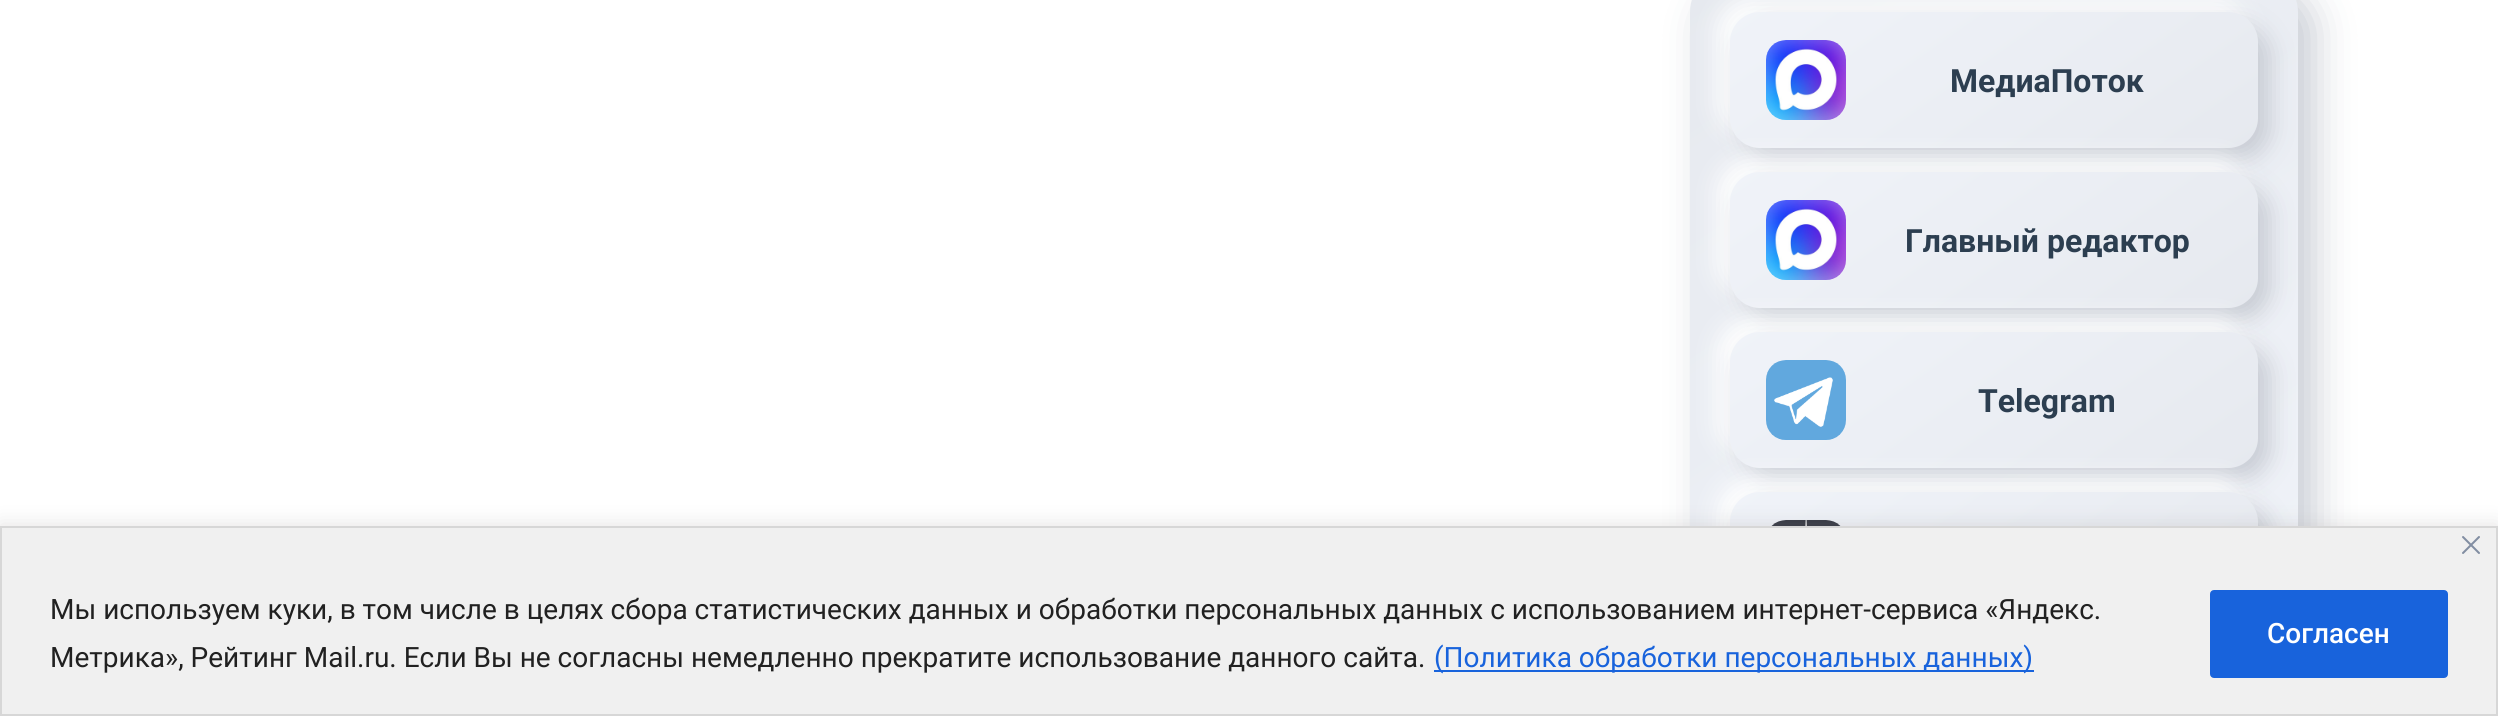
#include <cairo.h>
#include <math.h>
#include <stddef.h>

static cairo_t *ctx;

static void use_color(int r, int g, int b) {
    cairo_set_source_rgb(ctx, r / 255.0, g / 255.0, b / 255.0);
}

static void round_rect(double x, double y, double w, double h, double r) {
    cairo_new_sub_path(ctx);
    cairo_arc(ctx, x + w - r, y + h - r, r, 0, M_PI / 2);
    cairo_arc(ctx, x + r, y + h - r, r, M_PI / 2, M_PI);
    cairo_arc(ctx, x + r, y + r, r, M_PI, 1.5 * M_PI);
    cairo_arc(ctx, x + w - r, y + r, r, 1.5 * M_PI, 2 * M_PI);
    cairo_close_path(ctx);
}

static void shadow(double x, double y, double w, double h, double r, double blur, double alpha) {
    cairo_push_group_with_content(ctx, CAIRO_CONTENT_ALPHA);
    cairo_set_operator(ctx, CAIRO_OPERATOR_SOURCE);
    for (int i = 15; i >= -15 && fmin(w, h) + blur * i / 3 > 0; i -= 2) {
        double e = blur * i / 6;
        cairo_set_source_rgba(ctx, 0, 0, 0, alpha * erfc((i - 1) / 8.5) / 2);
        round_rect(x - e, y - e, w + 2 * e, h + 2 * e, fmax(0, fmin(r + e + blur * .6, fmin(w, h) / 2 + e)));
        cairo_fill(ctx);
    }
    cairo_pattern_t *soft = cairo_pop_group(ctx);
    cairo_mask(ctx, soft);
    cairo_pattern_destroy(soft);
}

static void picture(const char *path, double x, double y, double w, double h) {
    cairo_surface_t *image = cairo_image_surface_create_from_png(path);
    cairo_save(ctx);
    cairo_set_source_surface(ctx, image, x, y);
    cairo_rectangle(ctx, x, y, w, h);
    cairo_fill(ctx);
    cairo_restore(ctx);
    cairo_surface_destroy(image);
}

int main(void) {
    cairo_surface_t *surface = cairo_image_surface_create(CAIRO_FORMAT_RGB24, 2498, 716);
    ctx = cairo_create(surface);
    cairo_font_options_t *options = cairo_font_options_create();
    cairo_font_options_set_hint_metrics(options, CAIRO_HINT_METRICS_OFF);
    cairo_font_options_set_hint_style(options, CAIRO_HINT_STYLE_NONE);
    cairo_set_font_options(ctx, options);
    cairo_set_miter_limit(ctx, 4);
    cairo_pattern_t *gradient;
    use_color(255, 255, 255);
    cairo_paint(ctx);
    use_color(200, 204, 212);
    shadow(1706, -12, 608, 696, 40, 20, 1);
    gradient = cairo_pattern_create_linear(1730, -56, 2258, 696);
    cairo_pattern_add_color_stop_rgba(gradient, 0, 0.902, 0.914, 0.937, 1);
    cairo_pattern_add_color_stop_rgba(gradient, 1, 0.941, 0.953, 0.976, 1);
    cairo_set_source(ctx, gradient);
    cairo_pattern_destroy(gradient);
    round_rect(1690, -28, 608, 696, 40);
    cairo_fill(ctx);
    use_color(255, 255, 255);
    shadow(1718, 0, 528, 136, 30, 12, 1);
    use_color(200, 204, 212);
    shadow(1742, 24, 528, 136, 30, 12, 1);
    gradient = cairo_pattern_create_linear(1875, -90, 2113, 250);
    cairo_pattern_add_color_stop_rgba(gradient, 0, 0.941, 0.953, 0.976, 1);
    cairo_pattern_add_color_stop_rgba(gradient, 1, 0.902, 0.914, 0.937, 1);
    cairo_set_source(ctx, gradient);
    cairo_pattern_destroy(gradient);
    round_rect(1730, 12, 528, 136, 30);
    cairo_fill(ctx);
    picture("img1.png", 1766, 40, 80, 80);
    cairo_select_font_face(ctx, "Roboto", CAIRO_FONT_SLANT_NORMAL, CAIRO_FONT_WEIGHT_BOLD);
    cairo_set_font_size(ctx, 32);
    use_color(44, 62, 80);
    cairo_move_to(ctx, 1950, 92);
    cairo_show_text(ctx, "МедиаПоток");
    use_color(255, 255, 255);
    shadow(1718, 160, 528, 136, 30, 12, 1);
    use_color(200, 204, 212);
    shadow(1742, 184, 528, 136, 30, 12, 1);
    gradient = cairo_pattern_create_linear(1875, 70, 2113, 410);
    cairo_pattern_add_color_stop_rgba(gradient, 0, 0.941, 0.953, 0.976, 1);
    cairo_pattern_add_color_stop_rgba(gradient, 1, 0.902, 0.914, 0.937, 1);
    cairo_set_source(ctx, gradient);
    cairo_pattern_destroy(gradient);
    round_rect(1730, 172, 528, 136, 30);
    cairo_fill(ctx);
    picture("img1.png", 1766, 200, 80, 80);
    use_color(44, 62, 80);
    cairo_move_to(ctx, 1905, 252);
    cairo_show_text(ctx, "Главный редактор");
    use_color(255, 255, 255);
    shadow(1718, 320, 528, 136, 30, 12, 1);
    use_color(200, 204, 212);
    shadow(1742, 344, 528, 136, 30, 12, 1);
    gradient = cairo_pattern_create_linear(1875, 230, 2113, 570);
    cairo_pattern_add_color_stop_rgba(gradient, 0, 0.941, 0.953, 0.976, 1);
    cairo_pattern_add_color_stop_rgba(gradient, 1, 0.902, 0.914, 0.937, 1);
    cairo_set_source(ctx, gradient);
    cairo_pattern_destroy(gradient);
    round_rect(1730, 332, 528, 136, 30);
    cairo_fill(ctx);
    picture("img2.png", 1766, 360, 80, 80);
    use_color(44, 62, 80);
    cairo_move_to(ctx, 1978, 412);
    cairo_show_text(ctx, "Telegram");
    use_color(255, 255, 255);
    shadow(1718, 480, 528, 136, 30, 12, 1);
    use_color(200, 204, 212);
    shadow(1742, 504, 528, 136, 30, 12, 1);
    gradient = cairo_pattern_create_linear(1875, 390, 2113, 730);
    cairo_pattern_add_color_stop_rgba(gradient, 0, 0.941, 0.953, 0.976, 1);
    cairo_pattern_add_color_stop_rgba(gradient, 1, 0.902, 0.914, 0.937, 1);
    cairo_set_source(ctx, gradient);
    cairo_pattern_destroy(gradient);
    round_rect(1730, 492, 528, 136, 30);
    cairo_fill(ctx);
    picture("img3.png", 1771, 520, 70, 6);
    use_color(172, 171, 171);
    shadow(0, 524, 2498, 190, 0, 10, 0.3);
    use_color(240, 240, 240);
    cairo_rectangle(ctx, 1, 527, 2496, 188);
    cairo_fill_preserve(ctx);
    use_color(215, 215, 215);
    cairo_stroke(ctx);
    picture("img4.png", 2462, 536, 18, 18);
    cairo_select_font_face(ctx, "Roboto", CAIRO_FONT_SLANT_NORMAL, CAIRO_FONT_WEIGHT_NORMAL);
    cairo_set_font_size(ctx, 28);
    use_color(33, 33, 33);
    cairo_move_to(ctx, 50, 619);
    cairo_show_text(ctx, "Мы используем куки, в том числе в целях сбора статистических данных и обработки персональных данных с использованием интернет-сервиса «Яндекс.");
    cairo_move_to(ctx, 50, 667);
    cairo_show_text(ctx, "Метрика», Рейтинг Mail.ru. Если Вы не согласны немедленно прекратите использование данного сайта.");
    use_color(24, 99, 220);
    cairo_rectangle(ctx, 1434, 670, 600, 2);
    cairo_fill(ctx);
    cairo_move_to(ctx, 1434, 667);
    cairo_show_text(ctx, "(Политика обработки персональных данных)");
    round_rect(2212, 592, 234, 84, 2);
    cairo_fill_preserve(ctx);
    cairo_set_line_width(ctx, 4);
    cairo_stroke(ctx);
    cairo_select_font_face(ctx, "Roboto Medium", CAIRO_FONT_SLANT_NORMAL, CAIRO_FONT_WEIGHT_NORMAL);
    use_color(255, 255, 255);
    cairo_move_to(ctx, 2267, 643);
    cairo_show_text(ctx, "Согласен");
    cairo_surface_write_to_png(surface, "result.png");
    cairo_font_options_destroy(options);
    cairo_destroy(ctx);
    cairo_surface_destroy(surface);
    return 0;
}
